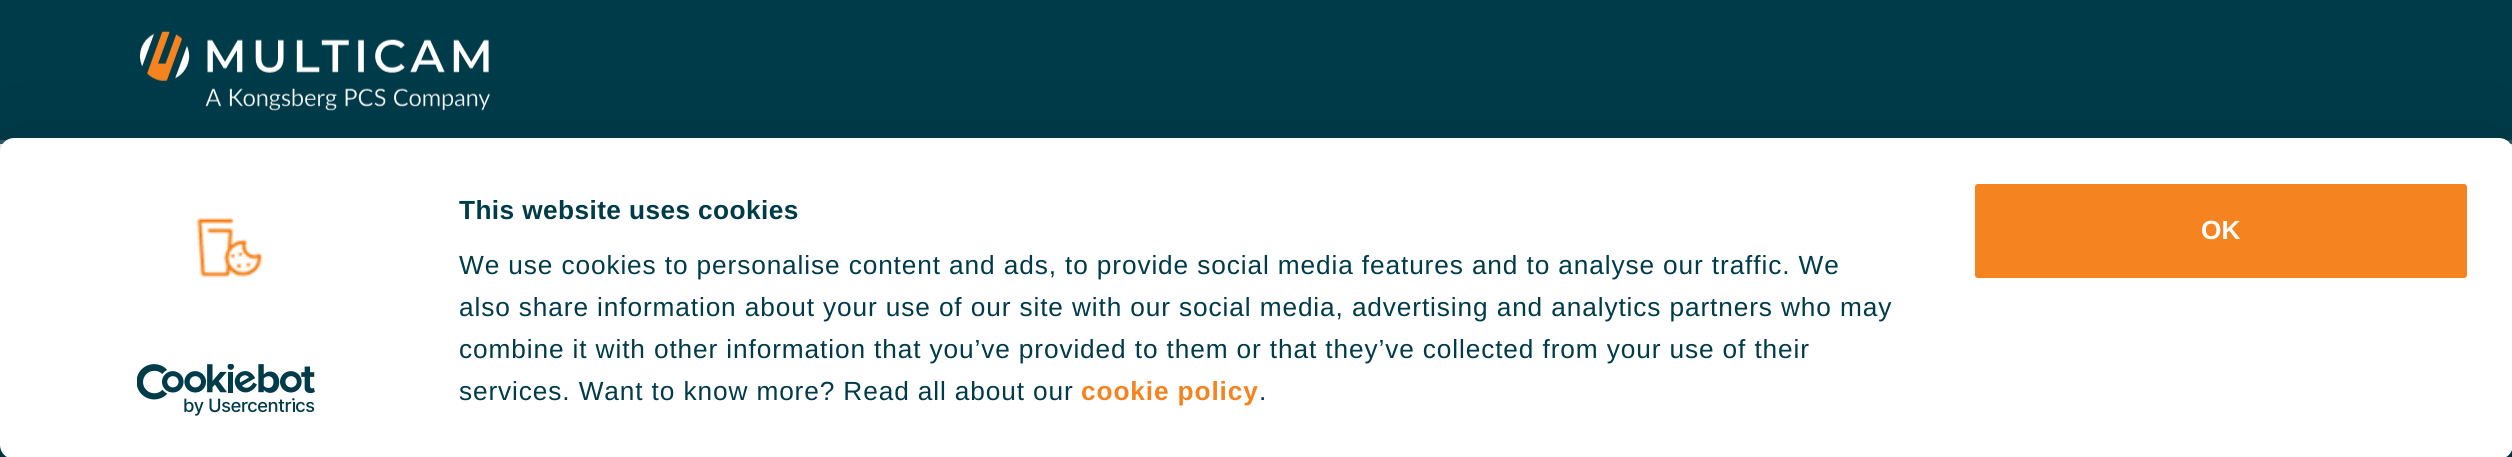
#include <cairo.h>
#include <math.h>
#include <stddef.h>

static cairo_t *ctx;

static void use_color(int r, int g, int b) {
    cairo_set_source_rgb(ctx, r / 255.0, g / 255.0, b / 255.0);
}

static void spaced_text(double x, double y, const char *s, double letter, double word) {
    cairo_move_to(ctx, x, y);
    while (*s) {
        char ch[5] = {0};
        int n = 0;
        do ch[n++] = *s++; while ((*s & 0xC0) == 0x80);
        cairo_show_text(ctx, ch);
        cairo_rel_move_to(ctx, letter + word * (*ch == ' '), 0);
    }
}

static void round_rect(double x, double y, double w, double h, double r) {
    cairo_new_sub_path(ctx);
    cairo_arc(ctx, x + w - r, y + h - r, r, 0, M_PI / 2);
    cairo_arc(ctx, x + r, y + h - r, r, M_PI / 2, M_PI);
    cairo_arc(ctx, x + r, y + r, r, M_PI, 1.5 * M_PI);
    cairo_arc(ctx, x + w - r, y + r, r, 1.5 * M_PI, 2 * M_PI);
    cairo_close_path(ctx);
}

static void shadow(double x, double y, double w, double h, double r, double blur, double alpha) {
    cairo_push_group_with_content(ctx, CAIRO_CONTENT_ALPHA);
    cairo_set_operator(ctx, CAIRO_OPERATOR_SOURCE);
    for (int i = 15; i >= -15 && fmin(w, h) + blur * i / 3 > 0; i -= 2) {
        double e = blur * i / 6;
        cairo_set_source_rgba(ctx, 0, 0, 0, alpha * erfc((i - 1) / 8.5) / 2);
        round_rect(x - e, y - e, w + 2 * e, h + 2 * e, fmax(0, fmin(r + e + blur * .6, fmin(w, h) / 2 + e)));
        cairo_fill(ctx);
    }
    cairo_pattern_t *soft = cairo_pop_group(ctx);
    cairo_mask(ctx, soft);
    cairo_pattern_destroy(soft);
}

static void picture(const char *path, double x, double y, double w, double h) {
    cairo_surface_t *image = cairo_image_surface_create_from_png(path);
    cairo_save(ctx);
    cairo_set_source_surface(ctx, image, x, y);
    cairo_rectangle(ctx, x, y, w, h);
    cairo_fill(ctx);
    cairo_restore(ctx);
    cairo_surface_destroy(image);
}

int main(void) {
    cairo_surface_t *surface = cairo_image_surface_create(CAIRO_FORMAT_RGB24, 2512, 457);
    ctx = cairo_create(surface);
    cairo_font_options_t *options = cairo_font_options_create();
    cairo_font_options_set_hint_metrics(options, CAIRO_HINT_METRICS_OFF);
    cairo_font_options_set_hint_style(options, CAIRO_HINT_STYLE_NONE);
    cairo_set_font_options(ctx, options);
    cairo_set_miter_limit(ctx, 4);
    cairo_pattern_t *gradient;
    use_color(255, 255, 255);
    cairo_paint(ctx);
    use_color(51, 98, 109);
    cairo_rectangle(ctx, 0, 140, 2512, 4);
    cairo_fill(ctx);
    use_color(0, 59, 73);
    cairo_rectangle(ctx, 0, 0, 2512, 140);
    cairo_fill(ctx);
    picture("img1.png", 140, 31, 350, 80);
    gradient = cairo_pattern_create_linear(1257, 140, 1257, 210);
    cairo_pattern_add_color_stop_rgba(gradient, 0, 0, 0, 0, 0.08);
    cairo_pattern_add_color_stop_rgba(gradient, 1, 0, 0, 0, 0);
    cairo_set_source(ctx, gradient);
    cairo_pattern_destroy(gradient);
    cairo_rectangle(ctx, 0, 140, 2512, 12);
    cairo_fill(ctx);
    use_color(0, 59, 73);
    cairo_rectangle(ctx, 0, 445, 2512, 12);
    cairo_fill(ctx);
    use_color(0, 0, 0);
    shadow(0, 191, 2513, 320, 14, 61, 0.3);
    use_color(255, 255, 255);
    round_rect(0, 138, 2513, 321, 14);
    cairo_fill(ctx);
    picture("img2.png", 195, 217, 68, 61);
    picture("img3.png", 137, 364, 178, 52);
    cairo_select_font_face(ctx, "Liberation Sans", CAIRO_FONT_SLANT_NORMAL, CAIRO_FONT_WEIGHT_BOLD);
    cairo_set_font_size(ctx, 26.25);
    use_color(0, 59, 73);
    spaced_text(459, 219, "This website uses cookies", 0.4, 0);
    cairo_select_font_face(ctx, "Liberation Sans", CAIRO_FONT_SLANT_NORMAL, CAIRO_FONT_WEIGHT_NORMAL);
    spaced_text(459, 274, "We use cookies to personalise content and ads, to provide social media features and to analyse our traffic. We", 0.88, 0);
    spaced_text(459, 316, "also share information about your use of our site with our social media, advertising and analytics partners who may", 0.88, 0);
    spaced_text(459, 358, "combine it with other information that you’ve provided to them or that they’ve collected from your use of their", 0.88, 0);
    spaced_text(459, 400, "services. Want to know more? Read all about our", 0.88, 0);
    cairo_select_font_face(ctx, "Liberation Sans", CAIRO_FONT_SLANT_NORMAL, CAIRO_FONT_WEIGHT_BOLD);
    use_color(245, 132, 32);
    spaced_text(1081, 400, "cookie policy", 0.88, 0);
    cairo_select_font_face(ctx, "Liberation Sans", CAIRO_FONT_SLANT_NORMAL, CAIRO_FONT_WEIGHT_NORMAL);
    use_color(0, 59, 73);
    spaced_text(1259, 400, ".", 0.88, 0);
    use_color(245, 132, 32);
    round_rect(1973, 182, 496, 98, 5);
    cairo_fill_preserve(ctx);
    use_color(255, 255, 255);
    cairo_set_line_width(ctx, 4);
    cairo_stroke(ctx);
    cairo_select_font_face(ctx, "Liberation Sans", CAIRO_FONT_SLANT_NORMAL, CAIRO_FONT_WEIGHT_BOLD);
    cairo_move_to(ctx, 2201, 239);
    cairo_show_text(ctx, "OK");
    cairo_surface_write_to_png(surface, "result.png");
    cairo_font_options_destroy(options);
    cairo_destroy(ctx);
    cairo_surface_destroy(surface);
    return 0;
}
